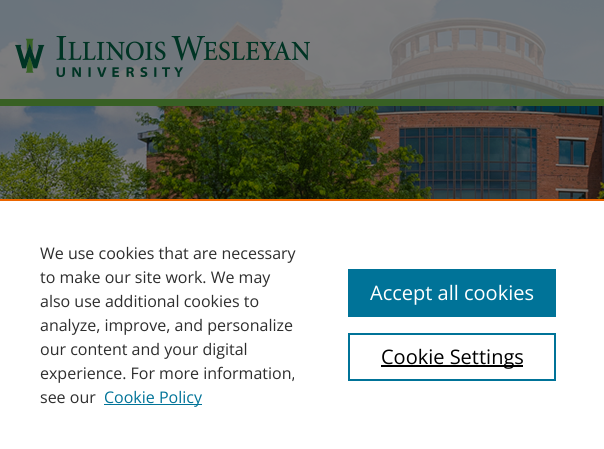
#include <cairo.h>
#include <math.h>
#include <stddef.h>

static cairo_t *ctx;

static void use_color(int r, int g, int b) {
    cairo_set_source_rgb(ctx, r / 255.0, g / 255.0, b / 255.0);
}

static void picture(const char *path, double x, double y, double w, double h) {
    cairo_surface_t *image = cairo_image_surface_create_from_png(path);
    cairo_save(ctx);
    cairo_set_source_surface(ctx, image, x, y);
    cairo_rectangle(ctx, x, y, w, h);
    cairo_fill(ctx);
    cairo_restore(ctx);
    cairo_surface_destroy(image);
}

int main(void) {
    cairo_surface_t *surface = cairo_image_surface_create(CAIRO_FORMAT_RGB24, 604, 449);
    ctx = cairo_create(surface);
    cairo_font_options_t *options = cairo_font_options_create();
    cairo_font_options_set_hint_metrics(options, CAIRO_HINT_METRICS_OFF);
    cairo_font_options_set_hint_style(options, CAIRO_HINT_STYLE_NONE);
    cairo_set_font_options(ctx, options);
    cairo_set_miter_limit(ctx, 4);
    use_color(255, 255, 255);
    cairo_paint(ctx);
    picture("img1.png", 0, 0, 604, 199);
    use_color(235, 101, 0);
    cairo_rectangle(ctx, 0, 199, 604, 2);
    cairo_fill(ctx);
    cairo_select_font_face(ctx, "Open Sans", CAIRO_FONT_SLANT_NORMAL, CAIRO_FONT_WEIGHT_NORMAL);
    cairo_set_font_size(ctx, 16);
    use_color(46, 46, 46);
    cairo_move_to(ctx, 40, 259);
    cairo_show_text(ctx, "We use cookies that are necessary");
    cairo_move_to(ctx, 40, 283);
    cairo_show_text(ctx, "to make our site work. We may");
    cairo_move_to(ctx, 40, 307);
    cairo_show_text(ctx, "also use additional cookies to");
    cairo_move_to(ctx, 40, 331);
    cairo_show_text(ctx, "analyze, improve, and personalize");
    cairo_move_to(ctx, 40, 355);
    cairo_show_text(ctx, "our content and your digital");
    cairo_move_to(ctx, 40, 379);
    cairo_show_text(ctx, "experience. For more information,");
    cairo_move_to(ctx, 40, 403);
    cairo_show_text(ctx, "see our");
    use_color(0, 115, 152);
    cairo_rectangle(ctx, 104, 404, 98, 1);
    cairo_fill(ctx);
    cairo_move_to(ctx, 104, 403);
    cairo_show_text(ctx, "Cookie Policy");
    cairo_rectangle(ctx, 348, 269, 208, 48);
    cairo_fill(ctx);
    cairo_set_font_size(ctx, 20);
    use_color(255, 255, 255);
    cairo_move_to(ctx, 370, 300);
    cairo_show_text(ctx, "Accept all cookies");
    cairo_rectangle(ctx, 349, 334, 206, 46);
    use_color(0, 115, 152);
    cairo_stroke(ctx);
    use_color(0, 0, 0);
    cairo_rectangle(ctx, 381, 365, 142, 2);
    cairo_fill(ctx);
    cairo_move_to(ctx, 381, 364);
    cairo_show_text(ctx, "Cookie Settings");
    cairo_surface_write_to_png(surface, "result.png");
    cairo_font_options_destroy(options);
    cairo_destroy(ctx);
    cairo_surface_destroy(surface);
    return 0;
}
